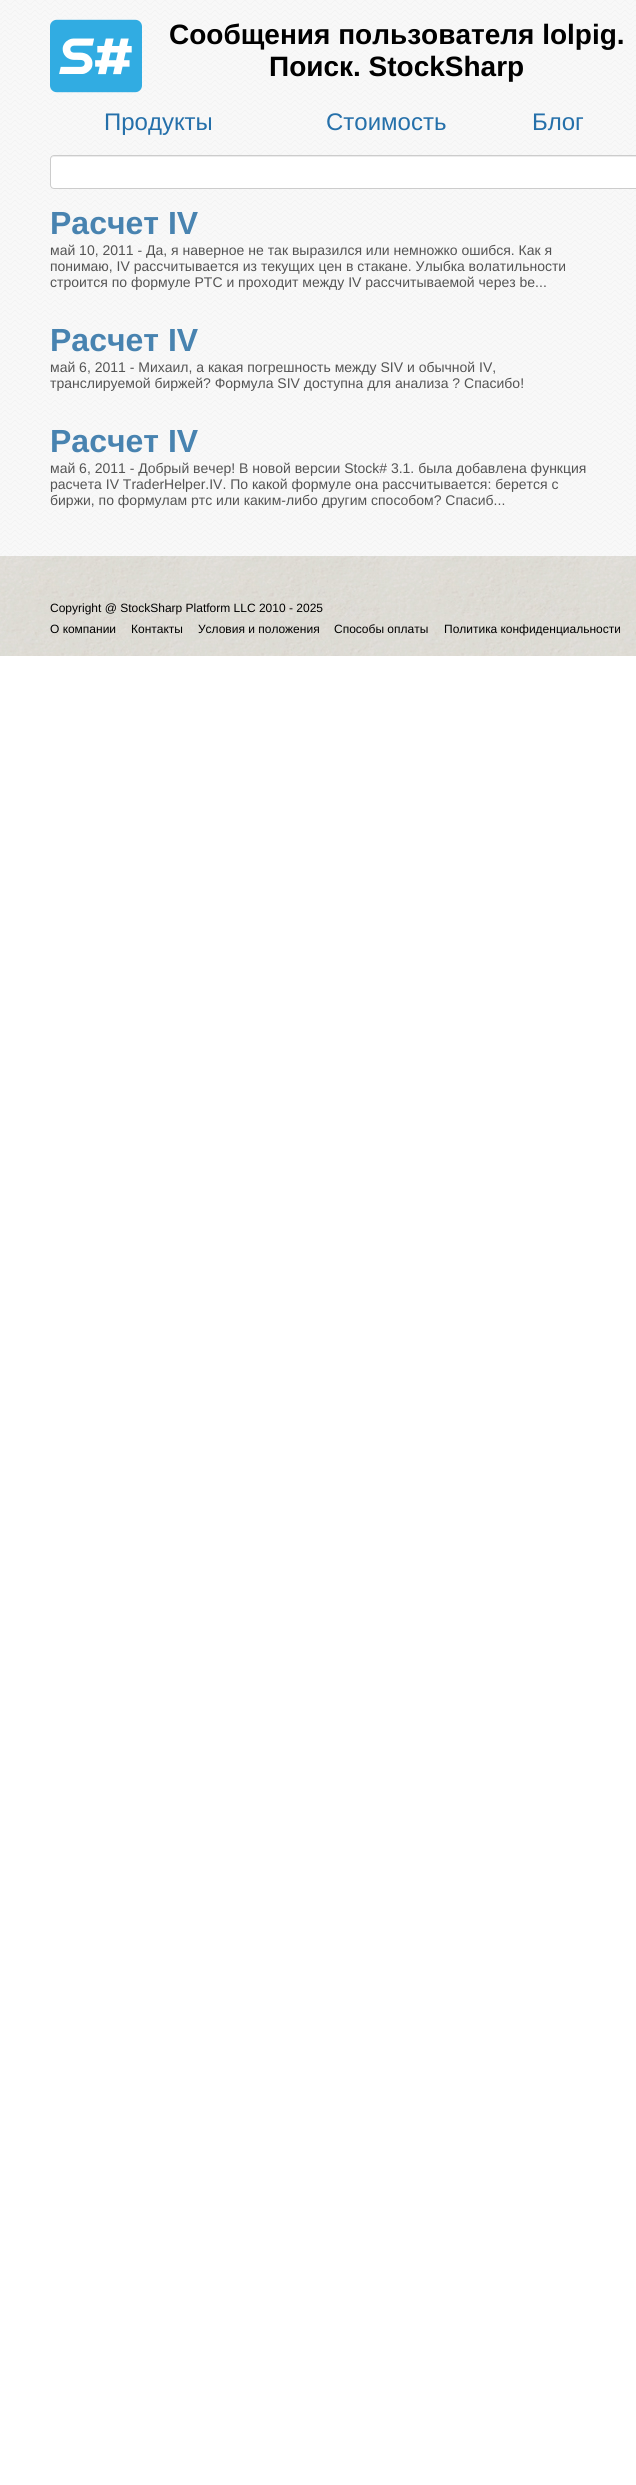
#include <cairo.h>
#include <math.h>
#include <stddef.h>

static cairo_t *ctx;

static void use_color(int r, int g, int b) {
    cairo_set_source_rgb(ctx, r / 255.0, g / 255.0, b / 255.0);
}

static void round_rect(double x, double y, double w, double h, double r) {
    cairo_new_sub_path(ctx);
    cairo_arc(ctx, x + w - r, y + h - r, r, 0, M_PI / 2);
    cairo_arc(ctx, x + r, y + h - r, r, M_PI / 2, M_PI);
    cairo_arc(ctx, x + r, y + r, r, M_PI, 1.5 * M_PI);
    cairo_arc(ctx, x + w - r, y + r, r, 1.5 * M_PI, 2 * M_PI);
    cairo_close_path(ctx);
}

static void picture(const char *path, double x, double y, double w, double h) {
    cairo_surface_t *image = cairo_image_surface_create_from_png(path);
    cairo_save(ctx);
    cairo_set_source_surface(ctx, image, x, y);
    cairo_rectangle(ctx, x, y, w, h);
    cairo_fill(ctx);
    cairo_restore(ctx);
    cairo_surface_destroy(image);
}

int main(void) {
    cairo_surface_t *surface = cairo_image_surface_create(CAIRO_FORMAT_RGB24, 636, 2485);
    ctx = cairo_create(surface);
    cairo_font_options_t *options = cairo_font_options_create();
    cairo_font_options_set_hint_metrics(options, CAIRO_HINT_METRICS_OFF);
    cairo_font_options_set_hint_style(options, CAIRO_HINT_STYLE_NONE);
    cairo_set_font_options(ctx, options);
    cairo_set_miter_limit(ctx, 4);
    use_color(255, 255, 255);
    cairo_paint(ctx);
    picture("img1.png", 0, 0, 636, 556);
    picture("img2.png", 50, 19, 92, 74);
    cairo_select_font_face(ctx, "Liberation Sans", CAIRO_FONT_SLANT_NORMAL, CAIRO_FONT_WEIGHT_BOLD);
    cairo_set_font_size(ctx, 28);
    use_color(0, 0, 0);
    cairo_move_to(ctx, 169, 44);
    cairo_show_text(ctx, "Сообщения пользователя lolpig.");
    cairo_move_to(ctx, 269, 76);
    cairo_show_text(ctx, "Поиск. StockSharp");
    cairo_select_font_face(ctx, "Liberation Sans", CAIRO_FONT_SLANT_NORMAL, CAIRO_FONT_WEIGHT_NORMAL);
    cairo_set_font_size(ctx, 24);
    use_color(37, 112, 170);
    cairo_move_to(ctx, 104, 130);
    cairo_show_text(ctx, "Продукты");
    cairo_move_to(ctx, 326, 130);
    cairo_show_text(ctx, "Стоимость");
    cairo_move_to(ctx, 532, 130);
    cairo_show_text(ctx, "Блог");
    use_color(255, 255, 255);
    round_rect(50, 155, 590, 34, 4);
    cairo_fill(ctx);
    use_color(236, 236, 236);
    cairo_new_path(ctx);
    cairo_move_to(ctx, 54, 157);
    cairo_line_to(ctx, 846, 157);
    cairo_curve_to(ctx, 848, 157, 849, 158, 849, 160);
    cairo_curve_to(ctx, 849, 158, 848, 156, 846, 156);
    cairo_line_to(ctx, 54, 156);
    cairo_curve_to(ctx, 52, 156, 51, 158, 51, 160);
    cairo_curve_to(ctx, 51, 158, 52, 157, 54, 157);
    cairo_close_path(ctx);
    cairo_fill(ctx);
    round_rect(50.5, 155.5, 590, 33, 3.5);
    use_color(204, 204, 204);
    cairo_set_line_width(ctx, 1);
    cairo_stroke(ctx);
    cairo_select_font_face(ctx, "Liberation Sans", CAIRO_FONT_SLANT_NORMAL, CAIRO_FONT_WEIGHT_BOLD);
    cairo_set_font_size(ctx, 32);
    use_color(72, 131, 176);
    cairo_move_to(ctx, 50, 234);
    cairo_show_text(ctx, "Расчет IV");
    cairo_select_font_face(ctx, "Liberation Sans", CAIRO_FONT_SLANT_NORMAL, CAIRO_FONT_WEIGHT_NORMAL);
    cairo_set_font_size(ctx, 14);
    use_color(84, 84, 84);
    cairo_move_to(ctx, 50, 255);
    cairo_show_text(ctx, "май 10, 2011 - Да, я наверное не так выразился или немножко ошибся. Как я");
    cairo_move_to(ctx, 50, 271);
    cairo_show_text(ctx, "понимаю, IV рассчитывается из текущих цен в стакане. Улыбка волатильности");
    cairo_move_to(ctx, 50, 287);
    cairo_show_text(ctx, "строится по формуле РТС и проходит между IV рассчитываемой через be...");
    cairo_select_font_face(ctx, "Liberation Sans", CAIRO_FONT_SLANT_NORMAL, CAIRO_FONT_WEIGHT_BOLD);
    cairo_set_font_size(ctx, 32);
    use_color(72, 131, 176);
    cairo_move_to(ctx, 50, 351);
    cairo_show_text(ctx, "Расчет IV");
    cairo_select_font_face(ctx, "Liberation Sans", CAIRO_FONT_SLANT_NORMAL, CAIRO_FONT_WEIGHT_NORMAL);
    cairo_set_font_size(ctx, 14);
    use_color(84, 84, 84);
    cairo_move_to(ctx, 50, 372);
    cairo_show_text(ctx, "май 6, 2011 - Михаил, а какая погрешность между SIV и обычной IV,");
    cairo_move_to(ctx, 50, 388);
    cairo_show_text(ctx, "транслируемой биржей? Формула SIV доступна для анализа ? Спасибо!");
    cairo_select_font_face(ctx, "Liberation Sans", CAIRO_FONT_SLANT_NORMAL, CAIRO_FONT_WEIGHT_BOLD);
    cairo_set_font_size(ctx, 32);
    use_color(72, 131, 176);
    cairo_move_to(ctx, 50, 452);
    cairo_show_text(ctx, "Расчет IV");
    cairo_select_font_face(ctx, "Liberation Sans", CAIRO_FONT_SLANT_NORMAL, CAIRO_FONT_WEIGHT_NORMAL);
    cairo_set_font_size(ctx, 14);
    use_color(84, 84, 84);
    cairo_move_to(ctx, 50, 473);
    cairo_show_text(ctx, "май 6, 2011 - Добрый вечер! В новой версии Stock# 3.1. была добавлена функция");
    cairo_move_to(ctx, 50, 489);
    cairo_show_text(ctx, "расчета IV TraderHelper.IV. По какой формуле она рассчитывается: берется с");
    cairo_move_to(ctx, 50, 505);
    cairo_show_text(ctx, "биржи, по формулам ртс или каким-либо другим способом? Спасиб...");
    picture("img3.png", 0, 556, 636, 100);
    cairo_set_font_size(ctx, 12);
    use_color(0, 0, 0);
    cairo_move_to(ctx, 50, 612);
    cairo_show_text(ctx, "Copyright @ StockSharp Platform LLC 2010 - 2025");
    cairo_move_to(ctx, 50, 633);
    cairo_show_text(ctx, "О компании");
    cairo_move_to(ctx, 131, 633);
    cairo_show_text(ctx, "Контакты");
    cairo_move_to(ctx, 198, 633);
    cairo_show_text(ctx, "Условия и положения");
    cairo_move_to(ctx, 334, 633);
    cairo_show_text(ctx, "Способы оплаты");
    cairo_move_to(ctx, 444, 633);
    cairo_show_text(ctx, "Политика конфиденциальности");
    cairo_surface_write_to_png(surface, "result.png");
    cairo_font_options_destroy(options);
    cairo_destroy(ctx);
    cairo_surface_destroy(surface);
    return 0;
}
